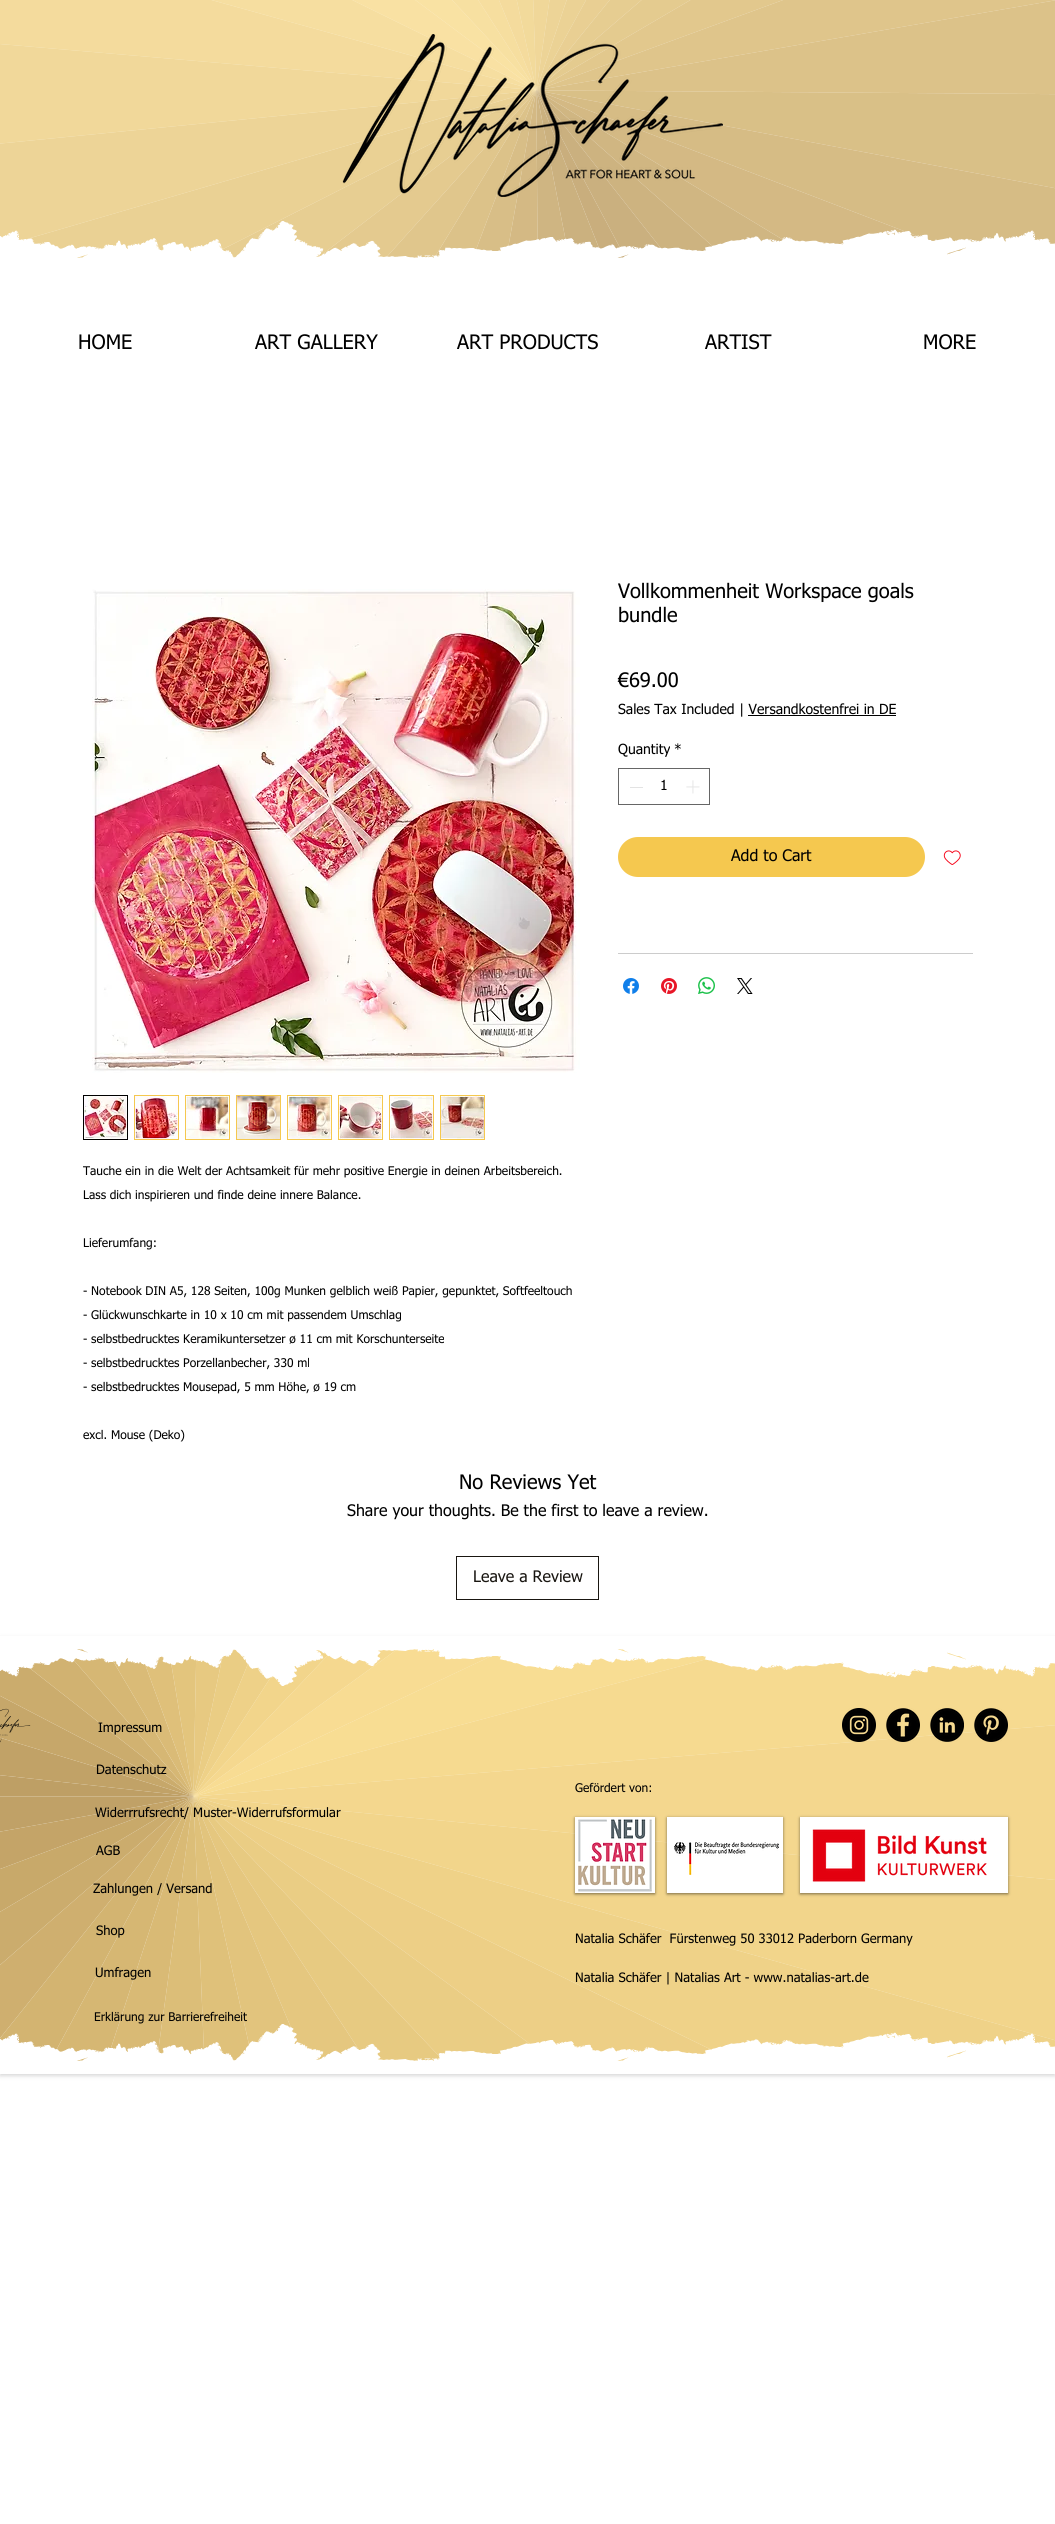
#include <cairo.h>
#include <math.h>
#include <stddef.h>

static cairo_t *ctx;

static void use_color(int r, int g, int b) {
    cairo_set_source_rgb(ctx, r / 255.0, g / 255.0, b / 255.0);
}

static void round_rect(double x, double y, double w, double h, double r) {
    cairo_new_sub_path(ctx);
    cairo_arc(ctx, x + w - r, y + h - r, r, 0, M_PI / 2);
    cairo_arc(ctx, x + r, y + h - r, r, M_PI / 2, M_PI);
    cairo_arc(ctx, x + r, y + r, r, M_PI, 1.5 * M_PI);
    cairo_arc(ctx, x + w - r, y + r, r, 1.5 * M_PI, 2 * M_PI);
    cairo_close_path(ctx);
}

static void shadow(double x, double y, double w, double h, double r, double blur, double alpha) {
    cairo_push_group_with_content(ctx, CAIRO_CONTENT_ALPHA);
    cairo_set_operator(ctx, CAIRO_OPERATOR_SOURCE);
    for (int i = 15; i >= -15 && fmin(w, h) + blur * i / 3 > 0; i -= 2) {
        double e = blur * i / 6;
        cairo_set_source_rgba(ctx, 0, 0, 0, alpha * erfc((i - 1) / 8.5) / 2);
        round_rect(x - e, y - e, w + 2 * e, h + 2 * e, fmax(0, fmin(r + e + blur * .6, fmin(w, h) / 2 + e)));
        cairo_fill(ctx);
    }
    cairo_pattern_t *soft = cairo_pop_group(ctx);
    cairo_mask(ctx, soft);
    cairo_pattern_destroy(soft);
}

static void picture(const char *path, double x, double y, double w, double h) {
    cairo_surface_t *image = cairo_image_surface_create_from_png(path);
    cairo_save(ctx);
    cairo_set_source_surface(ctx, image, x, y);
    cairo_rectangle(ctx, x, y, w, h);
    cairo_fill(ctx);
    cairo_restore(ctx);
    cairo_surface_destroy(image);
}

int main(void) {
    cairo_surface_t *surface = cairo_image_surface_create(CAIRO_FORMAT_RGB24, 1055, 2524);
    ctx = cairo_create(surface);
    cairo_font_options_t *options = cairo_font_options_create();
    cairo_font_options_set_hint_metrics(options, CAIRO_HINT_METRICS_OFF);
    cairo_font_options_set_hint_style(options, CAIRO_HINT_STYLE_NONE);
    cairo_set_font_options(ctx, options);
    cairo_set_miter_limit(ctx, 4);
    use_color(255, 255, 255);
    cairo_paint(ctx);
    picture("img1.png", 0, 0, 1055, 258);
    picture("img2.png", 342, 34, 381, 163);
    picture("img3.png", 0, 221, 1055, 50);
    cairo_select_font_face(ctx, "tahoma", CAIRO_FONT_SLANT_NORMAL, CAIRO_FONT_WEIGHT_NORMAL);
    cairo_set_font_size(ctx, 20);
    use_color(0, 0, 0);
    cairo_move_to(ctx, 78, 349);
    cairo_show_text(ctx, "HOME");
    cairo_move_to(ctx, 255, 349);
    cairo_show_text(ctx, "ART GALLERY");
    cairo_move_to(ctx, 457, 349);
    cairo_show_text(ctx, "ART PRODUCTS");
    cairo_move_to(ctx, 705, 349);
    cairo_show_text(ctx, "ARTIST");
    cairo_move_to(ctx, 923, 349);
    cairo_show_text(ctx, "MORE");
    cairo_move_to(ctx, 618, 598);
    cairo_show_text(ctx, "Vollkommenheit Workspace goals");
    cairo_move_to(ctx, 618, 622);
    cairo_show_text(ctx, "bundle");
    cairo_move_to(ctx, 618, 687);
    cairo_show_text(ctx, "€69.00");
    cairo_set_font_size(ctx, 14);
    cairo_move_to(ctx, 618, 714);
    cairo_show_text(ctx, "Sales Tax Included | Versandkostenfrei in DE");
    cairo_rectangle(ctx, 748, 715, 148, 1);
    cairo_fill(ctx);
    cairo_move_to(ctx, 618, 754);
    cairo_show_text(ctx, "Quantity");
    cairo_move_to(ctx, 674, 754);
    cairo_show_text(ctx, "*");
    cairo_rectangle(ctx, 618.5, 768.5, 91, 36);
    use_color(102, 102, 102);
    cairo_set_line_width(ctx, 1);
    cairo_stroke(ctx);
    use_color(227, 227, 227);
    cairo_rectangle(ctx, 630, 787, 13, 1);
    cairo_fill(ctx);
    use_color(0, 0, 0);
    cairo_move_to(ctx, 660, 790);
    cairo_show_text(ctx, "1");
    picture("img4.png", 686, 780, 14, 14);
    use_color(245, 200, 79);
    round_rect(618, 837, 307, 40, 20);
    cairo_fill(ctx);
    cairo_set_font_size(ctx, 16);
    use_color(0, 0, 0);
    cairo_move_to(ctx, 731, 861);
    cairo_show_text(ctx, "Add to Cart");
    picture("img5.png", 943, 850, 18, 15);
    use_color(204, 204, 204);
    cairo_rectangle(ctx, 618, 953, 355, 1);
    cairo_fill(ctx);
    picture("img6.png", 623, 978, 16, 16);
    picture("img7.png", 661, 978, 16, 16);
    picture("img8.png", 698, 977, 17, 17);
    picture("img9.png", 737, 978, 16, 16);
    picture("img10.png", 92, 589, 488, 484);
    cairo_rectangle(ctx, 83.5, 1095.5, 44, 44);
    use_color(0, 0, 0);
    cairo_stroke(ctx);
    picture("img11.png", 84, 1096, 43, 43);
    use_color(245, 200, 79);
    cairo_rectangle(ctx, 134, 1095, 45, 45);
    cairo_fill(ctx);
    picture("img12.png", 135, 1096, 43, 43);
    cairo_rectangle(ctx, 185, 1095, 45, 45);
    cairo_fill(ctx);
    picture("img13.png", 186, 1096, 43, 43);
    cairo_rectangle(ctx, 236, 1095, 45, 45);
    cairo_fill(ctx);
    picture("img14.png", 237, 1096, 43, 43);
    cairo_rectangle(ctx, 287, 1095, 45, 45);
    cairo_fill(ctx);
    picture("img15.png", 288, 1096, 43, 43);
    cairo_rectangle(ctx, 338, 1095, 45, 45);
    cairo_fill(ctx);
    picture("img16.png", 339, 1096, 43, 43);
    cairo_rectangle(ctx, 389, 1095, 45, 45);
    cairo_fill(ctx);
    picture("img17.png", 390, 1096, 43, 43);
    cairo_rectangle(ctx, 440, 1095, 45, 45);
    cairo_fill(ctx);
    picture("img18.png", 441, 1096, 43, 43);
    cairo_set_font_size(ctx, 12);
    use_color(0, 0, 0);
    cairo_move_to(ctx, 83, 1175);
    cairo_show_text(ctx, "Tauche ein in die Welt der Achtsamkeit für mehr positive Energie in deinen Arbeitsbereich.");
    cairo_move_to(ctx, 83, 1199);
    cairo_show_text(ctx, "Lass dich inspirieren und finde deine innere Balance.");
    cairo_move_to(ctx, 83, 1247);
    cairo_show_text(ctx, "Lieferumfang:");
    cairo_move_to(ctx, 83, 1295);
    cairo_show_text(ctx, "- Notebook DIN A5, 128 Seiten, 100g Munken gelblich weiß Papier, gepunktet, Softfeeltouch");
    cairo_move_to(ctx, 83, 1319);
    cairo_show_text(ctx, "- Glückwunschkarte in 10 x 10 cm mit passendem Umschlag");
    cairo_move_to(ctx, 83, 1343);
    cairo_show_text(ctx, "- selbstbedrucktes Keramikuntersetzer ø 11 cm mit Korschunterseite");
    cairo_move_to(ctx, 83, 1367);
    cairo_show_text(ctx, "- selbstbedrucktes Porzellanbecher, 330 ml");
    cairo_move_to(ctx, 83, 1391);
    cairo_show_text(ctx, "- selbstbedrucktes Mousepad, 5 mm Höhe, ø 19 cm");
    cairo_move_to(ctx, 83, 1439);
    cairo_show_text(ctx, "excl. Mouse (Deko)");
    cairo_set_font_size(ctx, 20);
    cairo_move_to(ctx, 459, 1489);
    cairo_show_text(ctx, "No Reviews Yet");
    cairo_set_font_size(ctx, 16);
    cairo_move_to(ctx, 347, 1516);
    cairo_show_text(ctx, "Share your thoughts. Be the first to leave a review.");
    cairo_rectangle(ctx, 456.5, 1556.5, 142, 43);
    use_color(25, 22, 17);
    cairo_stroke(ctx);
    cairo_move_to(ctx, 473, 1582);
    cairo_show_text(ctx, "Leave a Review");
    cairo_save(ctx);
    cairo_set_fill_rule(ctx, CAIRO_FILL_RULE_EVEN_ODD);
    cairo_new_path(ctx);
    cairo_move_to(ctx, 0, 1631);
    cairo_line_to(ctx, 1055, 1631);
    cairo_line_to(ctx, 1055, 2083);
    cairo_line_to(ctx, 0, 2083);
    cairo_close_path(ctx);
    cairo_move_to(ctx, 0, 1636);
    cairo_line_to(ctx, 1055, 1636);
    cairo_line_to(ctx, 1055, 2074);
    cairo_line_to(ctx, 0, 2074);
    cairo_close_path(ctx);
    cairo_clip(ctx);
    use_color(191, 191, 191);
    shadow(0, 1638, 1055, 438, 0, 2, 0.6);
    cairo_restore(ctx);
    picture("img19.png", 0, 1649, 1055, 412);
    picture("img20.png", 0, 1636, 1055, 50);
    picture("img21.png", 0, 1708, 31, 35);
    cairo_set_font_size(ctx, 13);
    use_color(0, 0, 0);
    cairo_move_to(ctx, 98, 1732);
    cairo_show_text(ctx, "Impressum");
    picture("img22.png", 842, 1708, 34, 34);
    picture("img23.png", 886, 1708, 34, 34);
    picture("img24.png", 930, 1708, 34, 34);
    picture("img25.png", 974, 1708, 34, 34);
    cairo_move_to(ctx, 96, 1774);
    cairo_show_text(ctx, "Datenschutz");
    cairo_set_font_size(ctx, 12);
    cairo_move_to(ctx, 575, 1792);
    cairo_show_text(ctx, "Gefördert von:");
    cairo_set_font_size(ctx, 13);
    cairo_move_to(ctx, 95, 1817);
    cairo_show_text(ctx, "Widerrrufsrecht/ Muster-Widerrufsformular");
    use_color(0, 0, 0);
    shadow(575, 1818, 80, 76, 0, 1.5, 0.5);
    use_color(255, 255, 255);
    cairo_rectangle(ctx, 575, 1817, 80, 76);
    cairo_fill(ctx);
    picture("img26.png", 578, 1819, 74, 73);
    use_color(0, 0, 0);
    shadow(667, 1818, 116, 76, 0, 1.5, 0.5);
    use_color(255, 255, 255);
    cairo_rectangle(ctx, 667, 1817, 116, 76);
    cairo_fill(ctx);
    picture("img27.png", 674, 1840, 105, 35);
    use_color(0, 0, 0);
    shadow(800, 1818, 208, 76, 0, 1.5, 0.5);
    use_color(255, 255, 255);
    cairo_rectangle(ctx, 800, 1817, 208, 76);
    cairo_fill(ctx);
    picture("img28.png", 812, 1829, 175, 53);
    use_color(0, 0, 0);
    cairo_move_to(ctx, 96, 1855);
    cairo_show_text(ctx, "AGB");
    cairo_move_to(ctx, 93, 1893);
    cairo_show_text(ctx, "Zahlungen / Versand");
    cairo_move_to(ctx, 96, 1935);
    cairo_show_text(ctx, "Shop");
    cairo_move_to(ctx, 95, 1977);
    cairo_show_text(ctx, "Umfragen");
    cairo_move_to(ctx, 575, 1943);
    cairo_show_text(ctx, "Natalia Schäfer  Fürstenweg 50 33012 Paderborn Germany");
    cairo_move_to(ctx, 575, 1982);
    cairo_show_text(ctx, "Natalia Schäfer | Natalias Art - www.natalias-art.de");
    cairo_set_font_size(ctx, 12);
    cairo_move_to(ctx, 94, 2021);
    cairo_show_text(ctx, "Erklärung zur Barrierefreiheit");
    picture("img29.png", 0, 2024, 1055, 50);
    cairo_surface_write_to_png(surface, "result.png");
    cairo_font_options_destroy(options);
    cairo_destroy(ctx);
    cairo_surface_destroy(surface);
    return 0;
}
